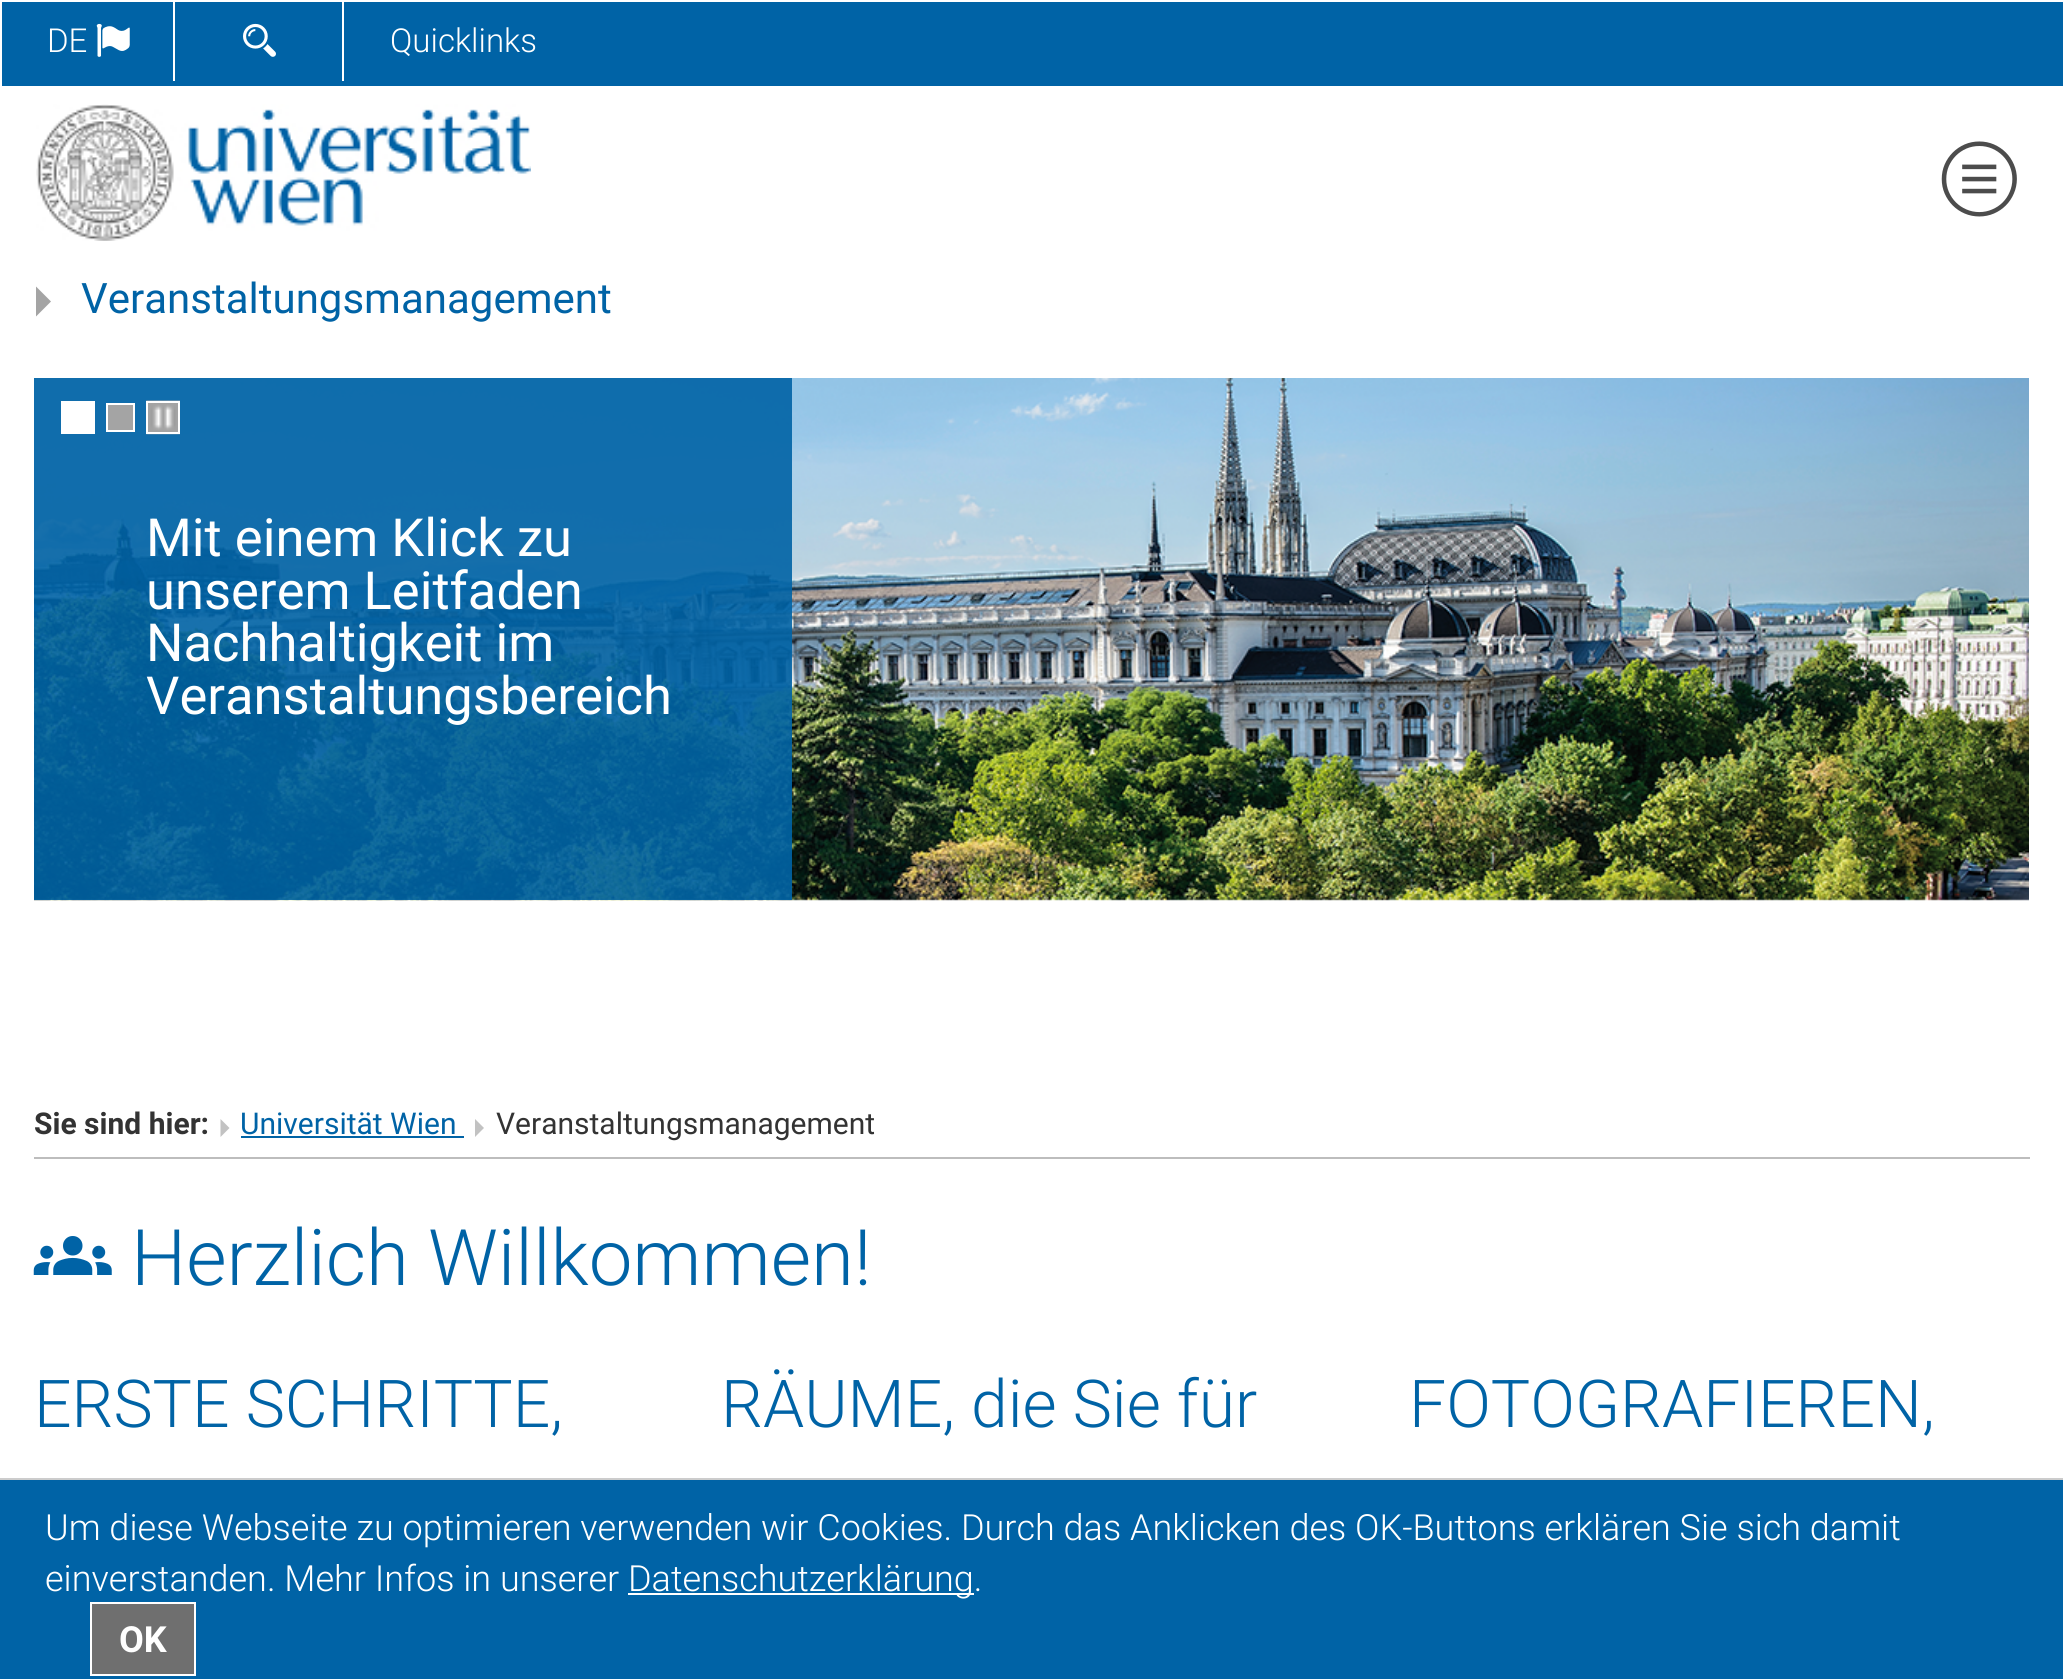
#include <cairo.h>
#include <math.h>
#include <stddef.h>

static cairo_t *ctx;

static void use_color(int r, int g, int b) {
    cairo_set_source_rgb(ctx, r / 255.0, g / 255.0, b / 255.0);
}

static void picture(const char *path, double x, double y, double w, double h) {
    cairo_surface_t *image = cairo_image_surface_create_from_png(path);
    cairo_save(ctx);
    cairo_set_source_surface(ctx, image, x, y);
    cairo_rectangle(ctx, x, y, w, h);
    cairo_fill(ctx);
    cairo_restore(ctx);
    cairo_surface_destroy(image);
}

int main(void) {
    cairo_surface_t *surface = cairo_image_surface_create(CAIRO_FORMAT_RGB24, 2063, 1679);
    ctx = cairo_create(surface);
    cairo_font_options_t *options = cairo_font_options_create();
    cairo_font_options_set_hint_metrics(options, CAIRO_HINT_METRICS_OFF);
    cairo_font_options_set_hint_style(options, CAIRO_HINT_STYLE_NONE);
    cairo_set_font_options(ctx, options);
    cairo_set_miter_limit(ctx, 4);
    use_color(255, 255, 255);
    cairo_paint(ctx);
    use_color(0, 99, 166);
    cairo_rectangle(ctx, 2, 2, 2061, 84);
    cairo_fill(ctx);
    use_color(255, 255, 255);
    cairo_rectangle(ctx, 173, 2, 2, 79);
    cairo_fill(ctx);
    cairo_select_font_face(ctx, "Roboto Light", CAIRO_FONT_SLANT_NORMAL, CAIRO_FONT_WEIGHT_NORMAL);
    cairo_set_font_size(ctx, 33);
    cairo_move_to(ctx, 47, 52);
    cairo_show_text(ctx, "DE");
    picture("img1.png", 96, 23, 34, 34);
    cairo_rectangle(ctx, 342, 2, 2, 79);
    cairo_fill(ctx);
    picture("img2.png", 243, 23, 33, 34);
    cairo_move_to(ctx, 390, 52);
    cairo_show_text(ctx, "Quicklinks");
    picture("img3.png", 36, 104, 495, 137);
    use_color(164, 164, 164);
    cairo_new_path(ctx);
    cairo_move_to(ctx, 36, 286.5);
    cairo_line_to(ctx, 36, 316.5);
    cairo_line_to(ctx, 51, 301.5);
    cairo_close_path(ctx);
    cairo_fill(ctx);
    cairo_select_font_face(ctx, "Roboto", CAIRO_FONT_SLANT_NORMAL, CAIRO_FONT_WEIGHT_NORMAL);
    cairo_set_font_size(ctx, 42);
    use_color(0, 99, 166);
    cairo_move_to(ctx, 81, 313);
    cairo_show_text(ctx, "Veranstaltungsmanagement");
    picture("img4.png", 1941, 141, 76, 76);
    picture("img5.png", 34, 378, 1995, 523);
    cairo_set_source_rgba(ctx, 0, 0.388, 0.651, 0.9);
    cairo_rectangle(ctx, 34, 378, 758, 522);
    cairo_fill(ctx);
    use_color(255, 255, 255);
    cairo_rectangle(ctx, 61, 401, 34, 33);
    cairo_fill(ctx);
    use_color(164, 164, 164);
    cairo_rectangle(ctx, 107, 404, 27, 27);
    cairo_fill_preserve(ctx);
    use_color(255, 255, 255);
    cairo_stroke(ctx);
    picture("img6.png", 146, 400, 34, 35);
    cairo_rectangle(ctx, 147, 402, 32, 31);
    cairo_stroke(ctx);
    cairo_set_font_size(ctx, 52.5);
    cairo_move_to(ctx, 146, 556);
    cairo_show_text(ctx, "Mit einem Klick zu");
    cairo_move_to(ctx, 146, 609);
    cairo_show_text(ctx, "unserem Leitfaden");
    cairo_move_to(ctx, 146, 661);
    cairo_show_text(ctx, "Nachhaltigkeit im");
    cairo_move_to(ctx, 146, 714);
    cairo_show_text(ctx, "Veranstaltungsbereich");
    cairo_select_font_face(ctx, "Roboto", CAIRO_FONT_SLANT_NORMAL, CAIRO_FONT_WEIGHT_BOLD);
    cairo_set_font_size(ctx, 30);
    use_color(51, 51, 51);
    cairo_move_to(ctx, 34, 1134);
    cairo_show_text(ctx, "Sie sind hier:");
    cairo_select_font_face(ctx, "Roboto", CAIRO_FONT_SLANT_NORMAL, CAIRO_FONT_WEIGHT_NORMAL);
    use_color(0, 99, 166);
    cairo_move_to(ctx, 240, 1134);
    cairo_show_text(ctx, "Universität Wien");
    use_color(194, 194, 194);
    cairo_new_path(ctx);
    cairo_move_to(ctx, 220.5, 1119);
    cairo_line_to(ctx, 220.5, 1137);
    cairo_line_to(ctx, 229.5, 1128);
    cairo_close_path(ctx);
    cairo_fill(ctx);
    use_color(0, 99, 166);
    cairo_rectangle(ctx, 241, 1136, 223, 2);
    cairo_fill(ctx);
    use_color(51, 51, 51);
    cairo_move_to(ctx, 496, 1134);
    cairo_show_text(ctx, "Veranstaltungsmanagement");
    use_color(194, 194, 194);
    cairo_new_path(ctx);
    cairo_move_to(ctx, 475, 1119);
    cairo_line_to(ctx, 475, 1137);
    cairo_line_to(ctx, 484, 1128);
    cairo_close_path(ctx);
    cairo_fill(ctx);
    use_color(189, 189, 189);
    cairo_rectangle(ctx, 34, 1157, 1996, 2);
    cairo_fill(ctx);
    picture("img7.png", 33, 1236, 79, 39);
    cairo_select_font_face(ctx, "Roboto Light", CAIRO_FONT_SLANT_NORMAL, CAIRO_FONT_WEIGHT_NORMAL);
    cairo_set_font_size(ctx, 78);
    use_color(0, 99, 166);
    cairo_move_to(ctx, 131, 1285);
    cairo_show_text(ctx, "Herzlich Willkommen!");
    cairo_set_font_size(ctx, 66);
    cairo_move_to(ctx, 34, 1427);
    cairo_show_text(ctx, "ERSTE SCHRITTE,");
    cairo_move_to(ctx, 721, 1427);
    cairo_show_text(ctx, "RÄUME, die Sie für");
    cairo_move_to(ctx, 1409, 1427);
    cairo_show_text(ctx, "FOTOGRAFIEREN,");
    cairo_rectangle(ctx, 0, 1480, 2063, 199);
    cairo_fill(ctx);
    use_color(204, 204, 204);
    cairo_rectangle(ctx, 0, 1478, 2063, 2);
    cairo_fill(ctx);
    cairo_set_font_size(ctx, 36);
    use_color(255, 255, 255);
    cairo_move_to(ctx, 45, 1540);
    cairo_show_text(ctx, "Um diese Webseite zu optimieren verwenden wir Cookies. Durch das Anklicken des OK-Buttons erklären Sie sich damit");
    cairo_move_to(ctx, 45, 1591);
    cairo_show_text(ctx, "einverstanden. Mehr Infos in unserer");
    cairo_rectangle(ctx, 628, 1593, 346, 2);
    cairo_fill(ctx);
    cairo_move_to(ctx, 628, 1591);
    cairo_show_text(ctx, "Datenschutzerklärung.");
    use_color(111, 111, 111);
    cairo_rectangle(ctx, 91, 1603, 104, 72);
    cairo_fill_preserve(ctx);
    use_color(255, 255, 255);
    cairo_stroke(ctx);
    cairo_select_font_face(ctx, "Roboto", CAIRO_FONT_SLANT_NORMAL, CAIRO_FONT_WEIGHT_BOLD);
    cairo_move_to(ctx, 119, 1652);
    cairo_show_text(ctx, "OK");
    cairo_surface_write_to_png(surface, "result.png");
    cairo_font_options_destroy(options);
    cairo_destroy(ctx);
    cairo_surface_destroy(surface);
    return 0;
}
